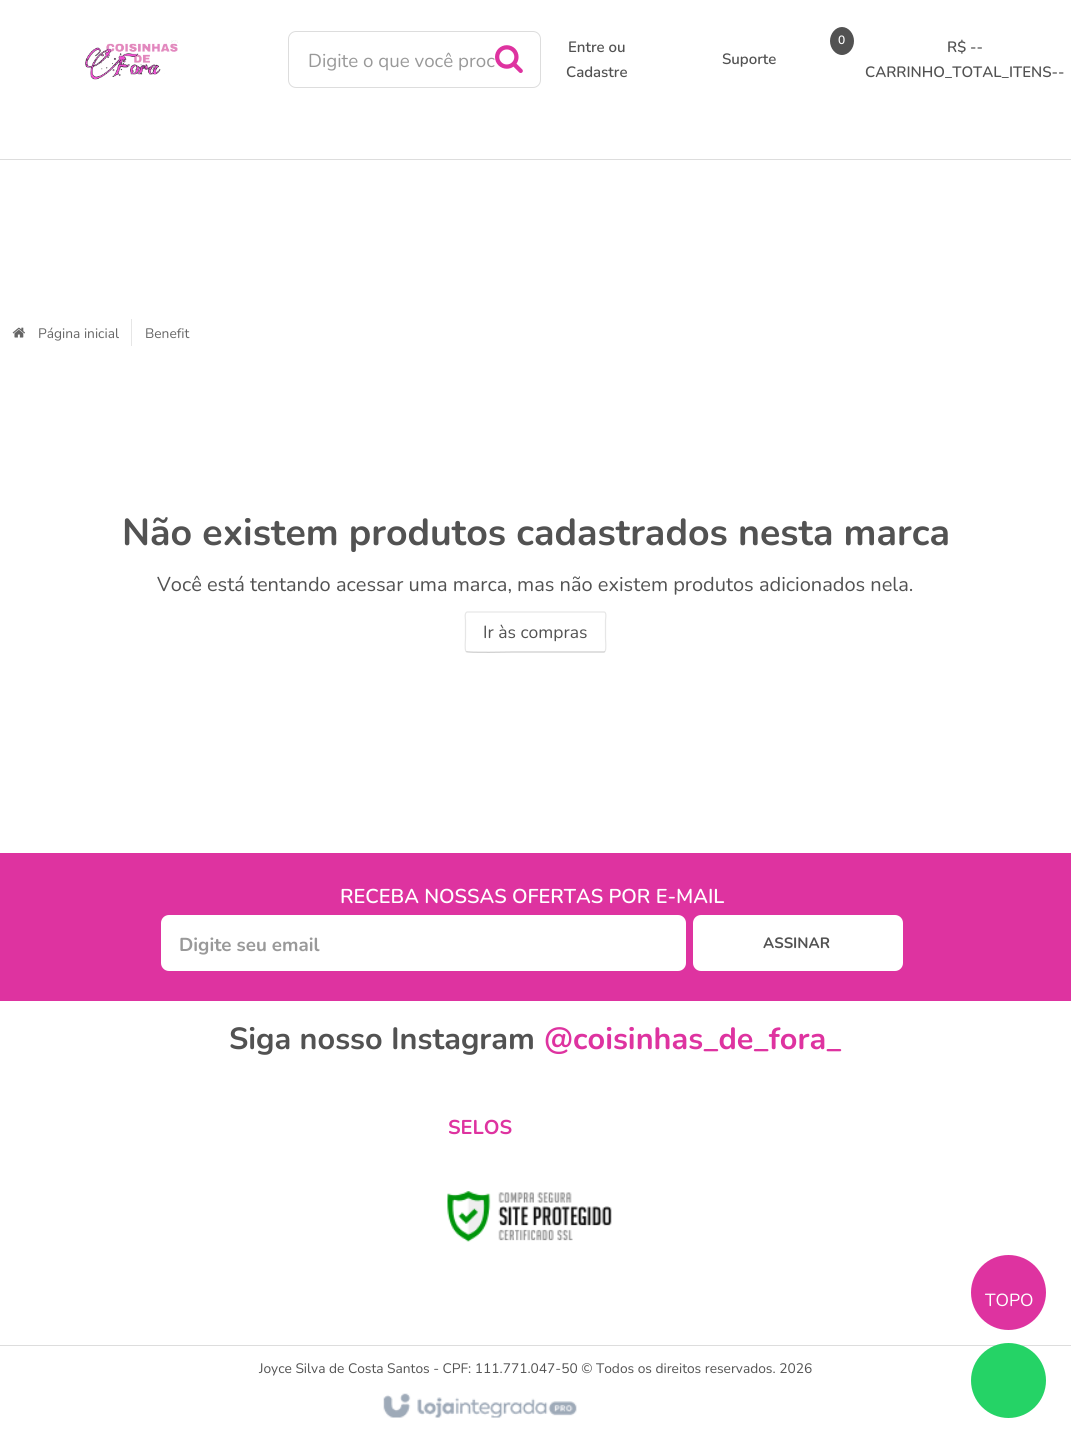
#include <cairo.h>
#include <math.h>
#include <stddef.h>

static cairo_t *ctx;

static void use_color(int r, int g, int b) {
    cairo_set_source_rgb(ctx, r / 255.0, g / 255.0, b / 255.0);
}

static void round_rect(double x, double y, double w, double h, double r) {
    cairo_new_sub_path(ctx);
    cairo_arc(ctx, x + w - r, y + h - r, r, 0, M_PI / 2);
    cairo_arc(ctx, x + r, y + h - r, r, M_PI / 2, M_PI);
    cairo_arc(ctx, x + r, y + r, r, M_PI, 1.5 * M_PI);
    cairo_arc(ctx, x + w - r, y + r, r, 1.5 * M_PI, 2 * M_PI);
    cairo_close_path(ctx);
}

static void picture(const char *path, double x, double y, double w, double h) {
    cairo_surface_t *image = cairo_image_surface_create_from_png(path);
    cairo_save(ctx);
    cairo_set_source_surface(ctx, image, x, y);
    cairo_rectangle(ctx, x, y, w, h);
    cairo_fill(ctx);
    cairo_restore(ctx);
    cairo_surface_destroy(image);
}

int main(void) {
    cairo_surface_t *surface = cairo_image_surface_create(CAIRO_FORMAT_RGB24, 1071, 1442);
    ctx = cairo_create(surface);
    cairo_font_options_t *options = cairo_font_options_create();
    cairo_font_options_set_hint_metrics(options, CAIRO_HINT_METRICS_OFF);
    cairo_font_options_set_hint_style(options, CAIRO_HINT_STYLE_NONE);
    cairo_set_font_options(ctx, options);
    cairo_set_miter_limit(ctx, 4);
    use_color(255, 255, 255);
    cairo_paint(ctx);
    use_color(221, 221, 221);
    cairo_rectangle(ctx, 0, 159, 1071, 1);
    cairo_fill(ctx);
    picture("img1.png", 85, 40, 93, 40);
    round_rect(288.5, 31.5, 252, 56, 7.5);
    cairo_set_line_width(ctx, 1);
    cairo_stroke(ctx);
    cairo_select_font_face(ctx, "Nunito", CAIRO_FONT_SLANT_NORMAL, CAIRO_FONT_WEIGHT_NORMAL);
    cairo_set_font_size(ctx, 18.75);
    use_color(153, 153, 153);
    cairo_move_to(ctx, 308, 67);
    cairo_show_text(ctx, "Digite o que você proc");
    picture("img2.png", 495, 45, 28, 28);
    cairo_select_font_face(ctx, "Nunito SemiBold", CAIRO_FONT_SLANT_NORMAL, CAIRO_FONT_WEIGHT_NORMAL);
    cairo_set_font_size(ctx, 15);
    use_color(82, 82, 82);
    cairo_move_to(ctx, 568, 52);
    cairo_show_text(ctx, "Entre ou");
    cairo_move_to(ctx, 566, 77);
    cairo_show_text(ctx, "Cadastre");
    cairo_move_to(ctx, 722, 64);
    cairo_show_text(ctx, "Suporte");
    cairo_new_path(ctx);
    cairo_move_to(ctx, 842, 27);
    cairo_curve_to(ctx, 848.5, 27, 854, 33.5, 854, 41);
    cairo_curve_to(ctx, 854, 48.5, 848.5, 55, 842, 55);
    cairo_curve_to(ctx, 835.5, 55, 830, 48.5, 830, 41);
    cairo_curve_to(ctx, 830, 33.5, 835.5, 27, 842, 27);
    cairo_close_path(ctx);
    cairo_fill(ctx);
    cairo_set_font_size(ctx, 12);
    use_color(255, 255, 255);
    cairo_move_to(ctx, 838, 44);
    cairo_show_text(ctx, "0");
    cairo_set_font_size(ctx, 15);
    use_color(82, 82, 82);
    cairo_move_to(ctx, 947, 52);
    cairo_show_text(ctx, "R$ --");
    cairo_move_to(ctx, 865, 77);
    cairo_show_text(ctx, "CARRINHO_TOTAL_ITENS--");
    picture("img3.png", 12, 327, 13, 11);
    cairo_select_font_face(ctx, "Nunito", CAIRO_FONT_SLANT_NORMAL, CAIRO_FONT_WEIGHT_NORMAL);
    cairo_set_font_size(ctx, 13.75);
    use_color(102, 102, 102);
    cairo_move_to(ctx, 38, 338);
    cairo_show_text(ctx, "Página inicial");
    use_color(230, 230, 230);
    cairo_rectangle(ctx, 131, 319, 1, 27);
    cairo_fill(ctx);
    use_color(102, 102, 102);
    cairo_move_to(ctx, 145, 338);
    cairo_show_text(ctx, "Benefit");
    cairo_select_font_face(ctx, "Nunito", CAIRO_FONT_SLANT_NORMAL, CAIRO_FONT_WEIGHT_BOLD);
    cairo_set_font_size(ctx, 37.5);
    use_color(82, 82, 82);
    cairo_move_to(ctx, 122, 545);
    cairo_show_text(ctx, "Não existem produtos cadastrados nesta marca");
    cairo_select_font_face(ctx, "Nunito", CAIRO_FONT_SLANT_NORMAL, CAIRO_FONT_WEIGHT_NORMAL);
    cairo_set_font_size(ctx, 20);
    cairo_move_to(ctx, 157, 591);
    cairo_show_text(ctx, "Você está tentando acessar uma marca, mas não existem produtos adicionados nela.");
    cairo_new_path(ctx);
    cairo_move_to(ctx, 605, 651.5);
    cairo_line_to(ctx, 604, 652);
    cairo_line_to(ctx, 513, 652);
    cairo_curve_to(ctx, 510, 652, 467.5, 653, 466, 651.5);
    use_color(204, 204, 204);
    cairo_set_line_width(ctx, 1.2);
    cairo_stroke(ctx);
    cairo_new_path(ctx);
    cairo_move_to(ctx, 466, 651.5);
    cairo_curve_to(ctx, 464.5, 649.5, 465.5, 640, 465.5, 638);
    cairo_line_to(ctx, 465.5, 620);
    cairo_curve_to(ctx, 465.5, 619.5, 464, 612, 467.5, 612);
    cairo_line_to(ctx, 604, 612);
    cairo_curve_to(ctx, 607, 612, 605.5, 619.5, 605.5, 620);
    cairo_line_to(ctx, 605.5, 638);
    cairo_curve_to(ctx, 605.5, 640, 606.5, 649.5, 605, 651.5);
    use_color(230, 230, 230);
    cairo_stroke(ctx);
    cairo_set_font_size(ctx, 17.5);
    use_color(82, 82, 82);
    cairo_move_to(ctx, 483, 638);
    cairo_show_text(ctx, "Ir às compras");
    use_color(222, 51, 160);
    cairo_rectangle(ctx, 0, 853, 1071, 148);
    cairo_fill(ctx);
    cairo_select_font_face(ctx, "Nunito SemiBold", CAIRO_FONT_SLANT_NORMAL, CAIRO_FONT_WEIGHT_NORMAL);
    cairo_set_font_size(ctx, 20);
    use_color(255, 255, 255);
    cairo_move_to(ctx, 340, 903);
    cairo_show_text(ctx, "RECEBA NOSSAS OFERTAS POR E-MAIL");
    round_rect(161, 915, 525, 56, 8);
    cairo_fill(ctx);
    cairo_select_font_face(ctx, "Nunito", CAIRO_FONT_SLANT_NORMAL, CAIRO_FONT_WEIGHT_BOLD);
    cairo_set_font_size(ctx, 18.75);
    use_color(153, 153, 153);
    cairo_move_to(ctx, 179, 951);
    cairo_show_text(ctx, "Digite seu email");
    use_color(255, 255, 255);
    round_rect(693, 915, 210, 56, 8);
    cairo_fill(ctx);
    cairo_set_font_size(ctx, 15);
    use_color(82, 82, 82);
    cairo_move_to(ctx, 763, 948);
    cairo_show_text(ctx, "ASSINAR");
    cairo_set_font_size(ctx, 30.6);
    cairo_move_to(ctx, 229, 1049);
    cairo_show_text(ctx, "Siga nosso Instagram");
    use_color(222, 51, 160);
    cairo_move_to(ctx, 544, 1049);
    cairo_show_text(ctx, "@coisinhas_de_fora_");
    cairo_set_font_size(ctx, 20);
    cairo_move_to(ctx, 448, 1134);
    cairo_show_text(ctx, "SELOS");
    picture("img4.png", 447, 1191, 165, 51);
    use_color(221, 221, 221);
    cairo_rectangle(ctx, 0, 1345, 1071, 1);
    cairo_fill(ctx);
    cairo_select_font_face(ctx, "Nunito", CAIRO_FONT_SLANT_NORMAL, CAIRO_FONT_WEIGHT_NORMAL);
    cairo_set_font_size(ctx, 13.75);
    use_color(82, 82, 82);
    cairo_move_to(ctx, 259, 1373);
    cairo_show_text(ctx, "Joyce Silva de Costa Santos - CPF: 111.771.047-50 © Todos os direitos reservados. 2026");
    picture("img5.png", 383, 1393, 194, 25);
    use_color(222, 51, 160);
    cairo_arc(ctx, 1008.5, 1292.5, 37.5, 0, 2 * M_PI);
    cairo_fill(ctx);
    cairo_set_font_size(ctx, 17.5);
    use_color(255, 255, 255);
    cairo_move_to(ctx, 985, 1306);
    cairo_show_text(ctx, "TOPO");
    use_color(37, 211, 102);
    cairo_new_path(ctx);
    cairo_arc(ctx, 1008.5, 1380.5, 37.5, 0, 2 * M_PI);
    cairo_fill(ctx);
    cairo_surface_write_to_png(surface, "result.png");
    cairo_font_options_destroy(options);
    cairo_destroy(ctx);
    cairo_surface_destroy(surface);
    return 0;
}
